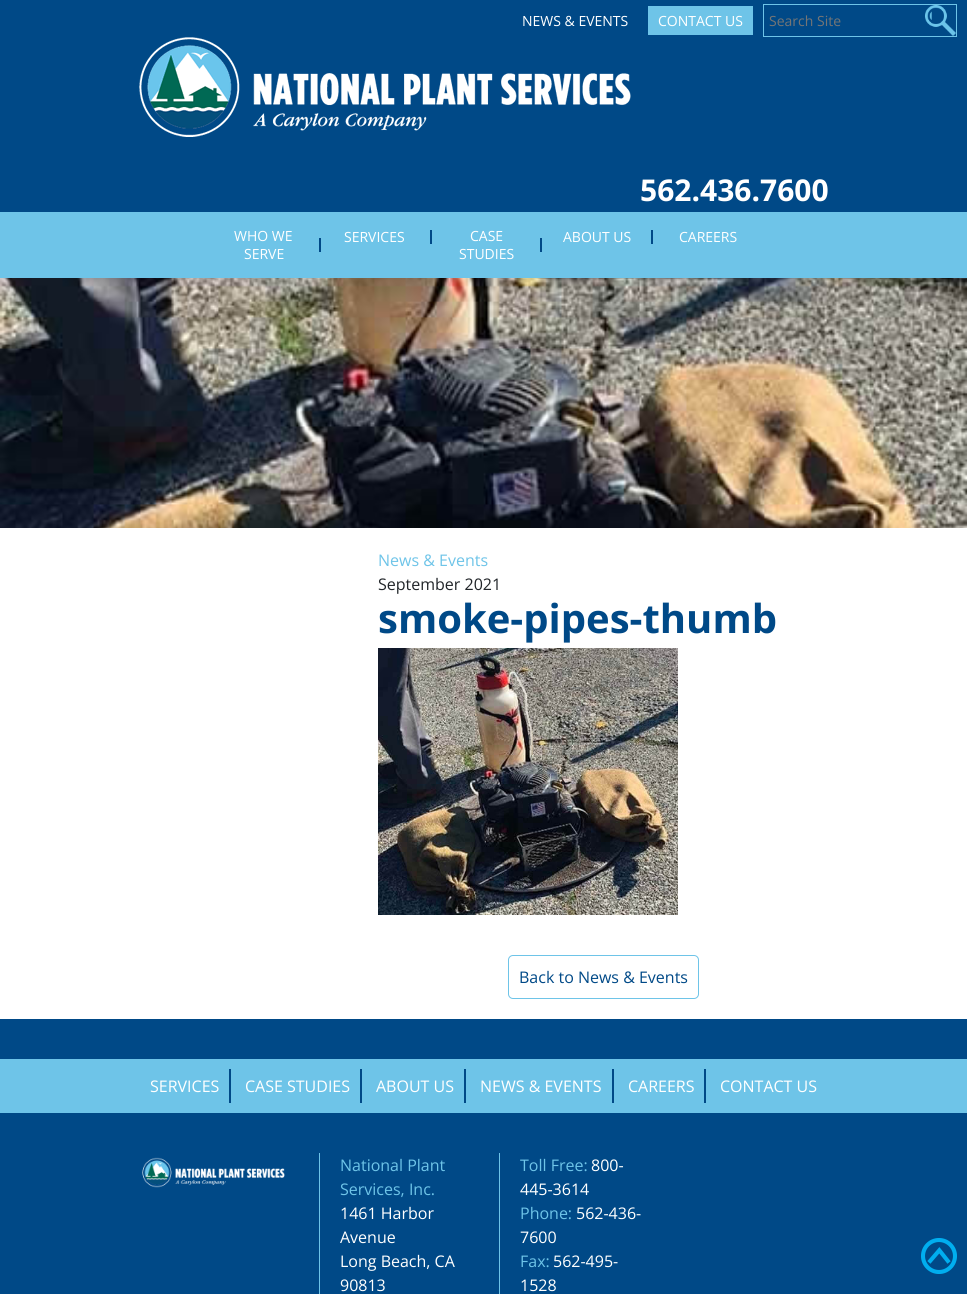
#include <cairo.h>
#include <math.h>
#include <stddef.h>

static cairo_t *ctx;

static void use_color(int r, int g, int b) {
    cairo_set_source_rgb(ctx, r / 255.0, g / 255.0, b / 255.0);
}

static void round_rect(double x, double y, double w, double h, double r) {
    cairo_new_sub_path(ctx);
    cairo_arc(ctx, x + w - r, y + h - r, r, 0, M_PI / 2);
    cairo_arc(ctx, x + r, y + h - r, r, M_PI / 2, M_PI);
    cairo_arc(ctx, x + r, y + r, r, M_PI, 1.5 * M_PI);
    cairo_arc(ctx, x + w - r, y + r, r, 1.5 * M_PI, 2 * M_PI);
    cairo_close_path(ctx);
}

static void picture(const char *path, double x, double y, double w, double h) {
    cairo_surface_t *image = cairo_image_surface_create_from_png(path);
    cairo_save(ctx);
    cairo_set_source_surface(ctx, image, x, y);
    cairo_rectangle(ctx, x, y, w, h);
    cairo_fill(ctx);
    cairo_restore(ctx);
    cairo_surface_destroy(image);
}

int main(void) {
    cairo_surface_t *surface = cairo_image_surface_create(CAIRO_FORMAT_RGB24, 967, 1294);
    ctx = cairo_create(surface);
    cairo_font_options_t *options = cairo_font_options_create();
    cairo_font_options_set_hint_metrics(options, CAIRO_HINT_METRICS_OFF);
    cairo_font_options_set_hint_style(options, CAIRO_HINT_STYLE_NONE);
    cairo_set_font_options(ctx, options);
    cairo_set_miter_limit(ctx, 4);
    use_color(255, 255, 255);
    cairo_paint(ctx);
    use_color(0, 73, 135);
    cairo_rectangle(ctx, 0, 0, 967, 212);
    cairo_fill(ctx);
    cairo_select_font_face(ctx, "Open Sans", CAIRO_FONT_SLANT_NORMAL, CAIRO_FONT_WEIGHT_NORMAL);
    cairo_set_font_size(ctx, 14);
    use_color(255, 255, 255);
    cairo_move_to(ctx, 522, 26);
    cairo_show_text(ctx, "NEWS & EVENTS");
    use_color(110, 196, 232);
    cairo_rectangle(ctx, 648, 6, 105, 29);
    cairo_fill(ctx);
    use_color(255, 255, 255);
    cairo_move_to(ctx, 658, 26);
    cairo_show_text(ctx, "CONTACT US");
    picture("img1.png", 925, 5, 31, 31);
    cairo_rectangle(ctx, 763.5, 4.5, 193, 32);
    use_color(110, 196, 232);
    cairo_set_line_width(ctx, 1);
    cairo_stroke(ctx);
    use_color(117, 117, 117);
    cairo_move_to(ctx, 769, 26);
    cairo_show_text(ctx, "Search Site");
    picture("img2.png", 139, 37, 492, 100);
    cairo_select_font_face(ctx, "Open Sans", CAIRO_FONT_SLANT_NORMAL, CAIRO_FONT_WEIGHT_BOLD);
    cairo_set_font_size(ctx, 30);
    use_color(255, 255, 255);
    cairo_move_to(ctx, 640, 201);
    cairo_show_text(ctx, "562.436.7600");
    use_color(110, 196, 232);
    cairo_rectangle(ctx, 0, 212, 967, 66);
    cairo_fill(ctx);
    use_color(0, 73, 135);
    cairo_rectangle(ctx, 319, 238, 2, 14);
    cairo_fill(ctx);
    cairo_select_font_face(ctx, "Open Sans", CAIRO_FONT_SLANT_NORMAL, CAIRO_FONT_WEIGHT_NORMAL);
    cairo_set_font_size(ctx, 14);
    use_color(255, 255, 255);
    cairo_move_to(ctx, 234, 241);
    cairo_show_text(ctx, "WHO WE");
    cairo_move_to(ctx, 244, 259);
    cairo_show_text(ctx, "SERVE");
    use_color(0, 73, 135);
    cairo_rectangle(ctx, 430, 230, 2, 14);
    cairo_fill(ctx);
    use_color(255, 255, 255);
    cairo_move_to(ctx, 344, 242);
    cairo_show_text(ctx, "SERVICES");
    use_color(0, 73, 135);
    cairo_rectangle(ctx, 540, 238, 2, 14);
    cairo_fill(ctx);
    use_color(255, 255, 255);
    cairo_move_to(ctx, 470, 241);
    cairo_show_text(ctx, "CASE");
    cairo_move_to(ctx, 459, 259);
    cairo_show_text(ctx, "STUDIES");
    use_color(0, 73, 135);
    cairo_rectangle(ctx, 651, 230, 2, 14);
    cairo_fill(ctx);
    use_color(255, 255, 255);
    cairo_move_to(ctx, 563, 242);
    cairo_show_text(ctx, "ABOUT US");
    cairo_move_to(ctx, 679, 242);
    cairo_show_text(ctx, "CAREERS");
    picture("img3.png", 0, 278, 967, 250);
    cairo_set_font_size(ctx, 16);
    use_color(110, 196, 232);
    cairo_move_to(ctx, 378, 566);
    cairo_show_text(ctx, "News & Events");
    use_color(33, 37, 41);
    cairo_move_to(ctx, 378, 590);
    cairo_show_text(ctx, "September 2021");
    cairo_select_font_face(ctx, "Open Sans", CAIRO_FONT_SLANT_NORMAL, CAIRO_FONT_WEIGHT_BOLD);
    cairo_set_font_size(ctx, 40);
    use_color(0, 73, 135);
    cairo_move_to(ctx, 378, 633);
    cairo_show_text(ctx, "smoke-pipes-thumb");
    picture("img4.png", 378, 648, 300, 267);
    round_rect(508.5, 955.5, 190, 43, 4.5);
    use_color(110, 196, 232);
    cairo_stroke(ctx);
    cairo_select_font_face(ctx, "Open Sans", CAIRO_FONT_SLANT_NORMAL, CAIRO_FONT_WEIGHT_NORMAL);
    cairo_set_font_size(ctx, 16);
    use_color(0, 73, 135);
    cairo_move_to(ctx, 519, 983);
    cairo_show_text(ctx, "Back to News & Events");
    cairo_rectangle(ctx, 0, 1019, 967, 275);
    cairo_fill(ctx);
    use_color(110, 196, 232);
    cairo_rectangle(ctx, 0, 1059, 967, 54);
    cairo_fill(ctx);
    use_color(0, 73, 135);
    cairo_rectangle(ctx, 229, 1069, 2, 34);
    cairo_fill(ctx);
    use_color(255, 255, 255);
    cairo_move_to(ctx, 150, 1092);
    cairo_show_text(ctx, "SERVICES");
    use_color(0, 73, 135);
    cairo_rectangle(ctx, 360, 1069, 2, 34);
    cairo_fill(ctx);
    use_color(255, 255, 255);
    cairo_move_to(ctx, 245, 1092);
    cairo_show_text(ctx, "CASE STUDIES");
    use_color(0, 73, 135);
    cairo_rectangle(ctx, 464, 1069, 2, 34);
    cairo_fill(ctx);
    use_color(255, 255, 255);
    cairo_move_to(ctx, 376, 1092);
    cairo_show_text(ctx, "ABOUT US");
    use_color(0, 73, 135);
    cairo_rectangle(ctx, 612, 1069, 2, 34);
    cairo_fill(ctx);
    use_color(255, 255, 255);
    cairo_move_to(ctx, 480, 1092);
    cairo_show_text(ctx, "NEWS & EVENTS");
    use_color(0, 73, 135);
    cairo_rectangle(ctx, 704, 1069, 2, 34);
    cairo_fill(ctx);
    use_color(255, 255, 255);
    cairo_move_to(ctx, 628, 1092);
    cairo_show_text(ctx, "CAREERS");
    cairo_move_to(ctx, 720, 1092);
    cairo_show_text(ctx, "CONTACT US");
    picture("img5.png", 142, 1157, 143, 31);
    use_color(110, 196, 232);
    cairo_rectangle(ctx, 319, 1153, 1, 141);
    cairo_fill(ctx);
    cairo_move_to(ctx, 340, 1171);
    cairo_show_text(ctx, "National Plant");
    cairo_move_to(ctx, 340, 1195);
    cairo_show_text(ctx, "Services, Inc.");
    use_color(255, 255, 255);
    cairo_move_to(ctx, 340, 1219);
    cairo_show_text(ctx, "1461 Harbor");
    cairo_move_to(ctx, 340, 1243);
    cairo_show_text(ctx, "Avenue");
    cairo_move_to(ctx, 340, 1267);
    cairo_show_text(ctx, "Long Beach, CA");
    cairo_move_to(ctx, 340, 1291);
    cairo_show_text(ctx, "90813");
    use_color(110, 196, 232);
    cairo_rectangle(ctx, 499, 1153, 1, 141);
    cairo_fill(ctx);
    cairo_move_to(ctx, 520, 1171);
    cairo_show_text(ctx, "Toll Free:");
    use_color(255, 255, 255);
    cairo_move_to(ctx, 591, 1171);
    cairo_show_text(ctx, "800-");
    cairo_move_to(ctx, 520, 1195);
    cairo_show_text(ctx, "445-3614");
    use_color(110, 196, 232);
    cairo_move_to(ctx, 520, 1219);
    cairo_show_text(ctx, "Phone:");
    use_color(255, 255, 255);
    cairo_move_to(ctx, 576, 1219);
    cairo_show_text(ctx, "562-436-");
    cairo_move_to(ctx, 520, 1243);
    cairo_show_text(ctx, "7600");
    use_color(110, 196, 232);
    cairo_move_to(ctx, 520, 1267);
    cairo_show_text(ctx, "Fax:");
    use_color(255, 255, 255);
    cairo_move_to(ctx, 553, 1267);
    cairo_show_text(ctx, "562-495-");
    cairo_move_to(ctx, 520, 1291);
    cairo_show_text(ctx, "1528");
    picture("img6.png", 921, 1238, 36, 36);
    cairo_surface_write_to_png(surface, "result.png");
    cairo_font_options_destroy(options);
    cairo_destroy(ctx);
    cairo_surface_destroy(surface);
    return 0;
}
